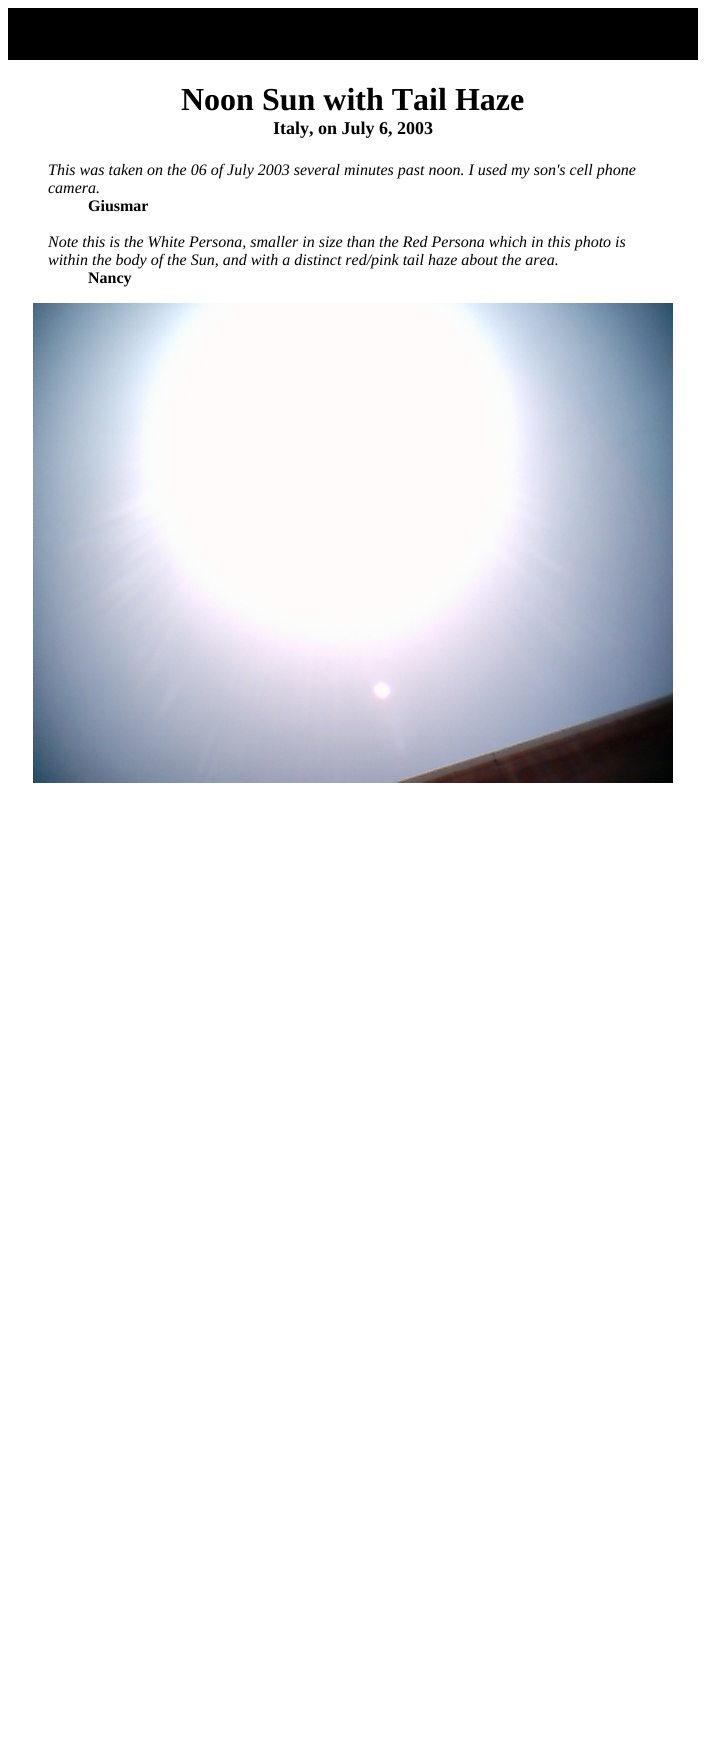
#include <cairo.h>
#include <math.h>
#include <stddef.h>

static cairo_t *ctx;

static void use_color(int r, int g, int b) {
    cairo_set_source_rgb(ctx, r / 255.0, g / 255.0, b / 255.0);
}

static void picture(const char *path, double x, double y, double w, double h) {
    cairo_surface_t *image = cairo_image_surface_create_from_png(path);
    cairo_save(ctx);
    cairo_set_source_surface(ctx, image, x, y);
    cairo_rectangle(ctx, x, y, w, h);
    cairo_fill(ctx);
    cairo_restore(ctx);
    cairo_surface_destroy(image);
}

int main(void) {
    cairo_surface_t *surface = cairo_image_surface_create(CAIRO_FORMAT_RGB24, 706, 1758);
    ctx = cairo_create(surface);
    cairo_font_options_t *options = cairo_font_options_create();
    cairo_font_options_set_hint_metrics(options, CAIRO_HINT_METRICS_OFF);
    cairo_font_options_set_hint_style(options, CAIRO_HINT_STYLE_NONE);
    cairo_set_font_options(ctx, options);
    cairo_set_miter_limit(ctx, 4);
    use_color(255, 255, 255);
    cairo_paint(ctx);
    use_color(0, 0, 0);
    cairo_rectangle(ctx, 8, 8, 690, 52);
    cairo_fill(ctx);
    cairo_select_font_face(ctx, "Liberation Serif", CAIRO_FONT_SLANT_NORMAL, CAIRO_FONT_WEIGHT_BOLD);
    cairo_set_font_size(ctx, 32);
    cairo_move_to(ctx, 181, 110);
    cairo_show_text(ctx, "Noon Sun with Tail Haze");
    cairo_set_font_size(ctx, 18);
    cairo_move_to(ctx, 273, 134);
    cairo_show_text(ctx, "Italy, on July 6, 2003");
    cairo_select_font_face(ctx, "Liberation Serif", CAIRO_FONT_SLANT_ITALIC, CAIRO_FONT_WEIGHT_NORMAL);
    cairo_set_font_size(ctx, 16);
    cairo_move_to(ctx, 48, 175);
    cairo_show_text(ctx, "This was taken on the 06 of July 2003 several minutes past noon. I used my son's cell phone");
    cairo_move_to(ctx, 48, 193);
    cairo_show_text(ctx, "camera.");
    cairo_select_font_face(ctx, "Liberation Serif", CAIRO_FONT_SLANT_NORMAL, CAIRO_FONT_WEIGHT_BOLD);
    cairo_move_to(ctx, 88, 211);
    cairo_show_text(ctx, "Giusmar");
    cairo_select_font_face(ctx, "Liberation Serif", CAIRO_FONT_SLANT_ITALIC, CAIRO_FONT_WEIGHT_NORMAL);
    cairo_move_to(ctx, 48, 247);
    cairo_show_text(ctx, "Note this is the White Persona, smaller in size than the Red Persona which in this photo is");
    cairo_move_to(ctx, 48, 265);
    cairo_show_text(ctx, "within the body of the Sun, and with a distinct red/pink tail haze about the area.");
    cairo_select_font_face(ctx, "Liberation Serif", CAIRO_FONT_SLANT_NORMAL, CAIRO_FONT_WEIGHT_BOLD);
    cairo_move_to(ctx, 88, 283);
    cairo_show_text(ctx, "Nancy");
    picture("img1.png", 33, 303, 640, 480);
    cairo_surface_write_to_png(surface, "result.png");
    cairo_font_options_destroy(options);
    cairo_destroy(ctx);
    cairo_surface_destroy(surface);
    return 0;
}
